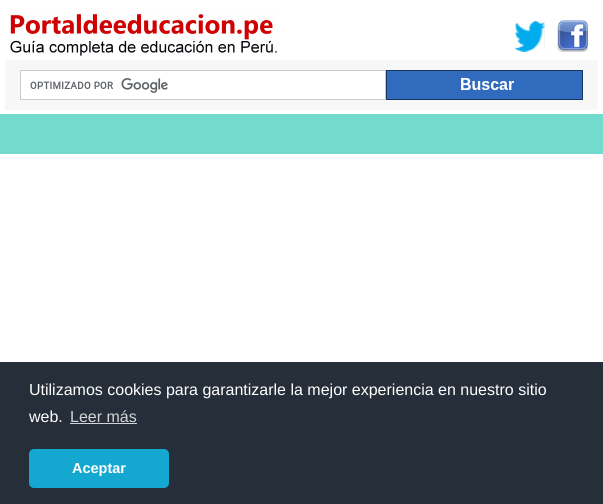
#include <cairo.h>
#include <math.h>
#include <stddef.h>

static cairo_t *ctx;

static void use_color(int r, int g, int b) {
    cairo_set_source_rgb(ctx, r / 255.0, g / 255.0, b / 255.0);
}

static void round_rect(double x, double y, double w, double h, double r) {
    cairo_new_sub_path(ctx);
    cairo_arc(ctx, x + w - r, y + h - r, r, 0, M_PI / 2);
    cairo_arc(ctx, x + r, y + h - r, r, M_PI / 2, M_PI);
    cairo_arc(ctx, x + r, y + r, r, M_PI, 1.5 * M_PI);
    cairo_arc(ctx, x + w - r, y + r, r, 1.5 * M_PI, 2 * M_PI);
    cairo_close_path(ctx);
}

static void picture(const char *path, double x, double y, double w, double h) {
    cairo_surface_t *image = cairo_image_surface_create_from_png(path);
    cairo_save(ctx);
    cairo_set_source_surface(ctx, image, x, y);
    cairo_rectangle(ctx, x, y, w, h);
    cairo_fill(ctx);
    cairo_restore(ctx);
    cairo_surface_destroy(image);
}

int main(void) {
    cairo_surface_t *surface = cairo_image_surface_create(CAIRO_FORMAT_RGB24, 603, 504);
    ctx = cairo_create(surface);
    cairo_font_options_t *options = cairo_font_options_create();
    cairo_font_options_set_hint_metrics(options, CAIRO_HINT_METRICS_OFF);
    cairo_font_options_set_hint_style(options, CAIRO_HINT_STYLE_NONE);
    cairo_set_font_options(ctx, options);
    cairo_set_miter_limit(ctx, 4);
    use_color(255, 255, 255);
    cairo_paint(ctx);
    picture("img1.png", 10, 14, 267, 42);
    picture("img2.png", 515, 21, 30, 31);
    picture("img3.png", 557, 20, 31, 32);
    use_color(247, 247, 247);
    cairo_rectangle(ctx, 5, 60, 593, 50);
    cairo_fill(ctx);
    picture("img4.png", 20, 70, 563, 30);
    use_color(114, 219, 205);
    cairo_rectangle(ctx, 0, 114, 603, 40);
    cairo_fill(ctx);
    use_color(37, 46, 57);
    cairo_rectangle(ctx, 0, 362, 603, 142);
    cairo_fill(ctx);
    cairo_select_font_face(ctx, "Liberation Sans", CAIRO_FONT_SLANT_NORMAL, CAIRO_FONT_WEIGHT_NORMAL);
    cairo_set_font_size(ctx, 16);
    use_color(255, 255, 255);
    cairo_move_to(ctx, 29, 395);
    cairo_show_text(ctx, "Utilizamos cookies para garantizarle la mejor experiencia en nuestro sitio");
    cairo_move_to(ctx, 29, 422);
    cairo_show_text(ctx, "web.");
    use_color(211, 213, 215);
    cairo_move_to(ctx, 70, 422);
    cairo_show_text(ctx, "Leer más");
    cairo_rectangle(ctx, 70, 423, 67, 1);
    cairo_fill(ctx);
    use_color(20, 167, 208);
    round_rect(29, 449, 140, 39, 5);
    cairo_fill(ctx);
    cairo_select_font_face(ctx, "Liberation Sans", CAIRO_FONT_SLANT_NORMAL, CAIRO_FONT_WEIGHT_BOLD);
    cairo_set_font_size(ctx, 14.5);
    use_color(255, 255, 255);
    cairo_move_to(ctx, 72, 473);
    cairo_show_text(ctx, "Aceptar");
    cairo_surface_write_to_png(surface, "result.png");
    cairo_font_options_destroy(options);
    cairo_destroy(ctx);
    cairo_surface_destroy(surface);
    return 0;
}
